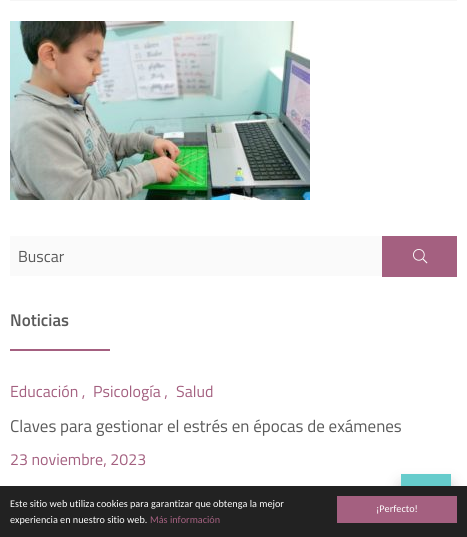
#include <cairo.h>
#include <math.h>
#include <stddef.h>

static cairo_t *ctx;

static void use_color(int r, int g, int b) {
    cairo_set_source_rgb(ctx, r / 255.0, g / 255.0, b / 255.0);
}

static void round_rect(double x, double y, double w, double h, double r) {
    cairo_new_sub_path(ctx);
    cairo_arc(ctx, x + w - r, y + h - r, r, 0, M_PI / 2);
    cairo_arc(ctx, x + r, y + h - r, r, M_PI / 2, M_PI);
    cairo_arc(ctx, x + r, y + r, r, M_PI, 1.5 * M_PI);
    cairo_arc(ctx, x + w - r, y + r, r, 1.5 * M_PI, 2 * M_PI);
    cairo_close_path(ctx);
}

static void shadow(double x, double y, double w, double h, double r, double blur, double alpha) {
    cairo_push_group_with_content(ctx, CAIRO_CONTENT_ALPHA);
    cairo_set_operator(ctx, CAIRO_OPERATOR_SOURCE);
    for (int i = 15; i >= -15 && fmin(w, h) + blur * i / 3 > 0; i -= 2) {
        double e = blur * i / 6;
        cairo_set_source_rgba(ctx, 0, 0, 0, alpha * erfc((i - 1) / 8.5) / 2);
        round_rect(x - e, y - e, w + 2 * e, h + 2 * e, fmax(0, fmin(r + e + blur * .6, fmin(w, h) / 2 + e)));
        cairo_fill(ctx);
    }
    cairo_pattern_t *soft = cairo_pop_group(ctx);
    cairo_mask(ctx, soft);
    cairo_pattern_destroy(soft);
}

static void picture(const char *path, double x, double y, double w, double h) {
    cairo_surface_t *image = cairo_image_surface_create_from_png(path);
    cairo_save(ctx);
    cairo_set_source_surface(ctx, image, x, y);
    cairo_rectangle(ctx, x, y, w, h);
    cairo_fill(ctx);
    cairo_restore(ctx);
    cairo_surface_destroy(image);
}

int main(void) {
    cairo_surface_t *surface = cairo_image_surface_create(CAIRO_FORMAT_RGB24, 467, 537);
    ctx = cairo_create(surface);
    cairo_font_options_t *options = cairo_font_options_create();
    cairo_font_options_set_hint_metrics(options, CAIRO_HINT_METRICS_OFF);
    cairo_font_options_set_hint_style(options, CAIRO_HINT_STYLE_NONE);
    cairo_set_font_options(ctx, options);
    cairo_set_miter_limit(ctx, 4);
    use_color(255, 255, 255);
    cairo_paint(ctx);
    use_color(246, 246, 246);
    cairo_rectangle(ctx, 10, 0, 447, 1);
    cairo_fill(ctx);
    picture("img1.png", 10, 21, 300, 179);
    use_color(250, 250, 250);
    cairo_rectangle(ctx, 10, 236, 372, 40);
    cairo_fill(ctx);
    cairo_select_font_face(ctx, "Titillium Web", CAIRO_FONT_SLANT_NORMAL, CAIRO_FONT_WEIGHT_NORMAL);
    cairo_set_font_size(ctx, 16);
    use_color(90, 90, 90);
    cairo_move_to(ctx, 18, 262);
    cairo_show_text(ctx, "Buscar");
    use_color(164, 96, 128);
    cairo_rectangle(ctx, 382, 236, 75, 41);
    cairo_fill(ctx);
    picture("img2.png", 413, 249, 15, 15);
    cairo_select_font_face(ctx, "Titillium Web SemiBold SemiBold", CAIRO_FONT_SLANT_NORMAL, CAIRO_FONT_WEIGHT_NORMAL);
    cairo_set_font_size(ctx, 17);
    use_color(90, 90, 90);
    cairo_move_to(ctx, 10, 326);
    cairo_show_text(ctx, "Noticias");
    use_color(164, 96, 128);
    cairo_rectangle(ctx, 10, 349, 100, 2);
    cairo_fill(ctx);
    cairo_select_font_face(ctx, "Titillium Web", CAIRO_FONT_SLANT_NORMAL, CAIRO_FONT_WEIGHT_NORMAL);
    cairo_set_font_size(ctx, 16);
    cairo_move_to(ctx, 10, 397);
    cairo_show_text(ctx, "Educación ,");
    cairo_move_to(ctx, 93, 397);
    cairo_show_text(ctx, "Psicología ,");
    cairo_move_to(ctx, 176, 397);
    cairo_show_text(ctx, "Salud");
    cairo_set_font_size(ctx, 17);
    use_color(90, 90, 90);
    cairo_move_to(ctx, 10, 432);
    cairo_show_text(ctx, "Claves para gestionar el estrés en épocas de exámenes");
    cairo_set_font_size(ctx, 16);
    use_color(164, 96, 128);
    cairo_move_to(ctx, 10, 465);
    cairo_show_text(ctx, "23 noviembre, 2023");
    use_color(0, 0, 0);
    shadow(401, 484, 50, 50, 0, 7.5, 0.2);
    use_color(34, 34, 34);
    cairo_rectangle(ctx, 0, 486, 467, 51);
    cairo_fill(ctx);
    cairo_select_font_face(ctx, "Carlito", CAIRO_FONT_SLANT_NORMAL, CAIRO_FONT_WEIGHT_NORMAL);
    cairo_set_font_size(ctx, 10.2);
    use_color(255, 255, 255);
    cairo_move_to(ctx, 10, 507);
    cairo_show_text(ctx, "Este sitio web utiliza cookies para garantizar que obtenga la mejor");
    cairo_move_to(ctx, 10, 523);
    cairo_show_text(ctx, "experiencia en nuestro sitio web.");
    use_color(164, 96, 128);
    cairo_move_to(ctx, 150, 523);
    cairo_show_text(ctx, "Más información");
    cairo_rectangle(ctx, 337, 496, 120, 27);
    cairo_fill(ctx);
    use_color(255, 255, 255);
    cairo_move_to(ctx, 376, 512);
    cairo_show_text(ctx, "¡Perfecto!");
    use_color(102, 204, 204);
    cairo_rectangle(ctx, 401, 474, 50, 12);
    cairo_fill(ctx);
    cairo_surface_write_to_png(surface, "result.png");
    cairo_font_options_destroy(options);
    cairo_destroy(ctx);
    cairo_surface_destroy(surface);
    return 0;
}
